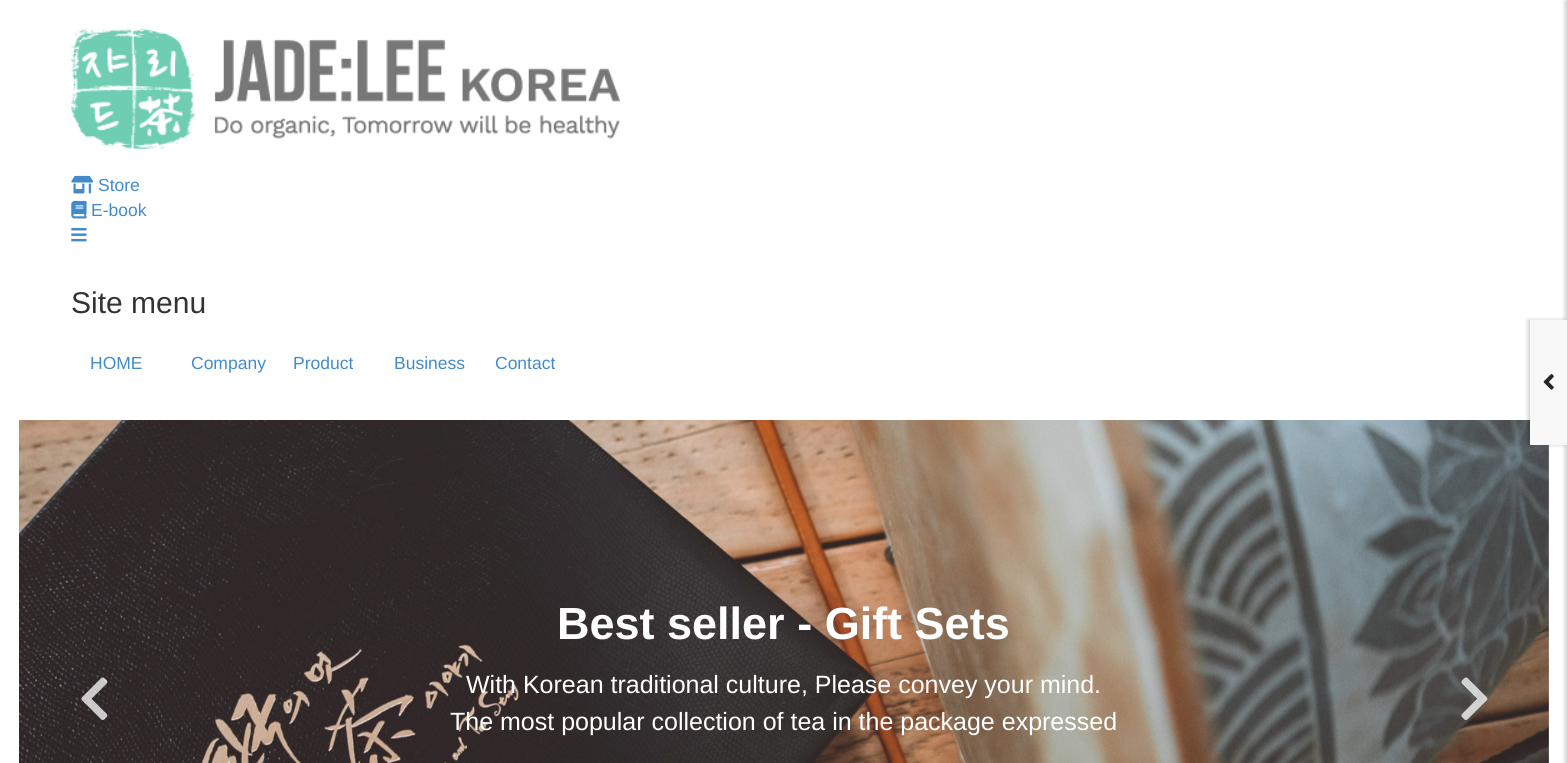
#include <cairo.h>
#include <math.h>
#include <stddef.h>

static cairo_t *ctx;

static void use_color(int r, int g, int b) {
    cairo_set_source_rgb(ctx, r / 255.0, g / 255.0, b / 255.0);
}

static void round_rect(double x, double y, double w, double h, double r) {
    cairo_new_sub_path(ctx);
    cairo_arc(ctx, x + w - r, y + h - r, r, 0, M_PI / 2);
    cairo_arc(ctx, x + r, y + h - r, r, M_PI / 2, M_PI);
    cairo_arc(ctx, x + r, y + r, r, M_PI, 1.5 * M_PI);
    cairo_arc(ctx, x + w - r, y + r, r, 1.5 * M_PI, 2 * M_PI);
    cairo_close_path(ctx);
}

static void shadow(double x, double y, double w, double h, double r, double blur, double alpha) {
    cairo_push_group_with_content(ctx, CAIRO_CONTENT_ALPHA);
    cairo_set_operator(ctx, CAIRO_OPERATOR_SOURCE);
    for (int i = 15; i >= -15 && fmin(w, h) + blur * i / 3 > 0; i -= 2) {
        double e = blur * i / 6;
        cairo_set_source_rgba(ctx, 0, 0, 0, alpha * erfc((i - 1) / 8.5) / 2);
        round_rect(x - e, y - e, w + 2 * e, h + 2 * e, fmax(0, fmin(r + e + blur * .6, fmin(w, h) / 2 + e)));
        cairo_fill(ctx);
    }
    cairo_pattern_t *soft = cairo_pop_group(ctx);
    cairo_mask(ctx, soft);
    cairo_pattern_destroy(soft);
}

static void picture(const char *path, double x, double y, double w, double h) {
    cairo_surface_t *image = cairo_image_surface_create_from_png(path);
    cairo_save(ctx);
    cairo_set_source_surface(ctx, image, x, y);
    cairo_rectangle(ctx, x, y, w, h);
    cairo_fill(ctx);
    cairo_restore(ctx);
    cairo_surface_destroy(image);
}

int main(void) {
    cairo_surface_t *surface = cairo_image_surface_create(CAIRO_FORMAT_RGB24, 1567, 763);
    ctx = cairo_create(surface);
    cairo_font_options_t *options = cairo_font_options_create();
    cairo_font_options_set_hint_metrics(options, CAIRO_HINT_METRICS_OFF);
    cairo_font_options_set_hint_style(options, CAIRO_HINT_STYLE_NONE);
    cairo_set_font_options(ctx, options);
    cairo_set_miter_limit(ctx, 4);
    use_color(255, 255, 255);
    cairo_paint(ctx);
    picture("img1.png", 71, 27, 549, 122);
    picture("img2.png", 71, 175, 23, 19);
    cairo_select_font_face(ctx, "Liberation Sans", CAIRO_FONT_SLANT_NORMAL, CAIRO_FONT_WEIGHT_NORMAL);
    cairo_set_font_size(ctx, 17.5);
    use_color(66, 139, 202);
    cairo_move_to(ctx, 98, 191);
    cairo_show_text(ctx, "Store");
    picture("img3.png", 71, 200, 16, 19);
    cairo_move_to(ctx, 91, 216);
    cairo_show_text(ctx, "E-book");
    picture("img4.png", 71, 228, 16, 14);
    cairo_set_font_size(ctx, 30);
    use_color(51, 51, 51);
    cairo_move_to(ctx, 71, 313);
    cairo_show_text(ctx, "Site menu");
    cairo_set_font_size(ctx, 17.5);
    use_color(66, 139, 202);
    cairo_move_to(ctx, 90, 369);
    cairo_show_text(ctx, "HOME");
    cairo_move_to(ctx, 191, 369);
    cairo_show_text(ctx, "Company");
    cairo_move_to(ctx, 293, 369);
    cairo_show_text(ctx, "Product");
    cairo_move_to(ctx, 394, 369);
    cairo_show_text(ctx, "Business");
    cairo_move_to(ctx, 495, 369);
    cairo_show_text(ctx, "Contact");
    use_color(0, 0, 0);
    shadow(1565, 0, 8, 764, 0, 2, 0.2);
    picture("img7.png", 19, 420, 1530, 343);
    shadow(1528, 320, 37, 125, 0, 2, 0.2);
    use_color(248, 248, 248);
    cairo_rectangle(ctx, 1530, 320, 37, 125);
    cairo_fill(ctx);
    picture("img5.png", 1543, 374, 11, 16);
    picture("img6.png", 81, 677, 27, 43);
    cairo_select_font_face(ctx, "Liberation Sans", CAIRO_FONT_SLANT_NORMAL, CAIRO_FONT_WEIGHT_BOLD);
    cairo_set_font_size(ctx, 45);
    use_color(255, 255, 255);
    cairo_move_to(ctx, 557, 639);
    cairo_show_text(ctx, "Best seller - Gift Sets");
    cairo_select_font_face(ctx, "Liberation Sans", CAIRO_FONT_SLANT_NORMAL, CAIRO_FONT_WEIGHT_NORMAL);
    cairo_set_font_size(ctx, 25);
    cairo_move_to(ctx, 466, 693);
    cairo_show_text(ctx, "With Korean traditional culture, Please convey your mind.");
    cairo_move_to(ctx, 450, 730);
    cairo_show_text(ctx, "The most popular collection of tea in the package expressed");
    picture("img8.png", 1461, 677, 27, 43);
    cairo_surface_write_to_png(surface, "result.png");
    cairo_font_options_destroy(options);
    cairo_destroy(ctx);
    cairo_surface_destroy(surface);
    return 0;
}
